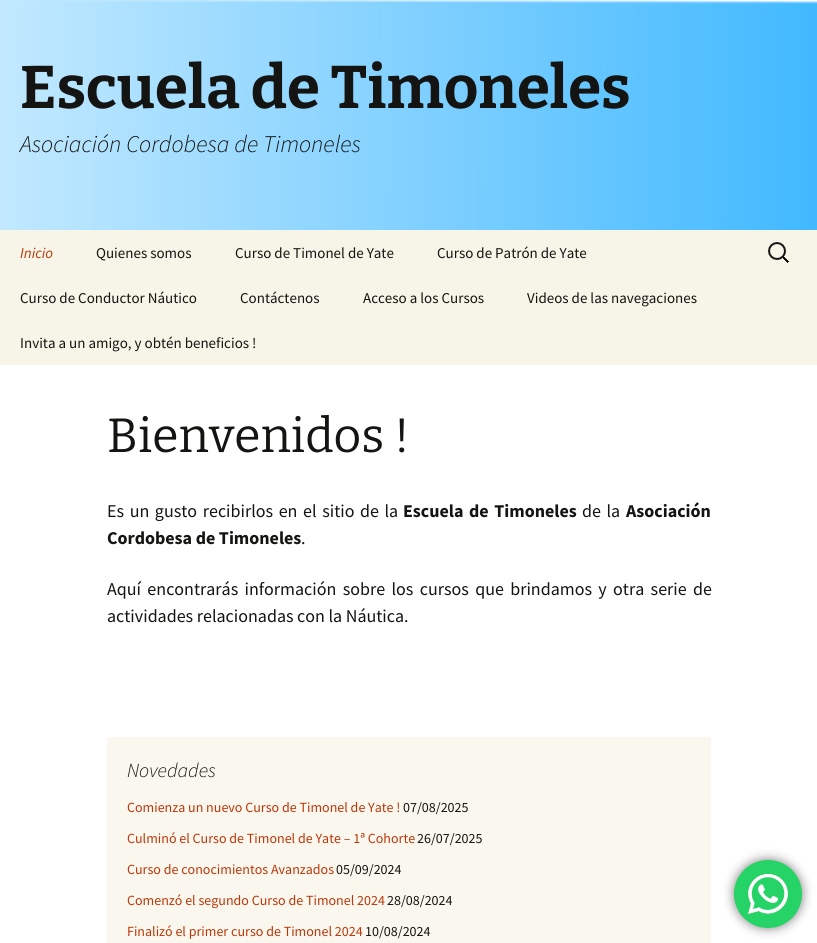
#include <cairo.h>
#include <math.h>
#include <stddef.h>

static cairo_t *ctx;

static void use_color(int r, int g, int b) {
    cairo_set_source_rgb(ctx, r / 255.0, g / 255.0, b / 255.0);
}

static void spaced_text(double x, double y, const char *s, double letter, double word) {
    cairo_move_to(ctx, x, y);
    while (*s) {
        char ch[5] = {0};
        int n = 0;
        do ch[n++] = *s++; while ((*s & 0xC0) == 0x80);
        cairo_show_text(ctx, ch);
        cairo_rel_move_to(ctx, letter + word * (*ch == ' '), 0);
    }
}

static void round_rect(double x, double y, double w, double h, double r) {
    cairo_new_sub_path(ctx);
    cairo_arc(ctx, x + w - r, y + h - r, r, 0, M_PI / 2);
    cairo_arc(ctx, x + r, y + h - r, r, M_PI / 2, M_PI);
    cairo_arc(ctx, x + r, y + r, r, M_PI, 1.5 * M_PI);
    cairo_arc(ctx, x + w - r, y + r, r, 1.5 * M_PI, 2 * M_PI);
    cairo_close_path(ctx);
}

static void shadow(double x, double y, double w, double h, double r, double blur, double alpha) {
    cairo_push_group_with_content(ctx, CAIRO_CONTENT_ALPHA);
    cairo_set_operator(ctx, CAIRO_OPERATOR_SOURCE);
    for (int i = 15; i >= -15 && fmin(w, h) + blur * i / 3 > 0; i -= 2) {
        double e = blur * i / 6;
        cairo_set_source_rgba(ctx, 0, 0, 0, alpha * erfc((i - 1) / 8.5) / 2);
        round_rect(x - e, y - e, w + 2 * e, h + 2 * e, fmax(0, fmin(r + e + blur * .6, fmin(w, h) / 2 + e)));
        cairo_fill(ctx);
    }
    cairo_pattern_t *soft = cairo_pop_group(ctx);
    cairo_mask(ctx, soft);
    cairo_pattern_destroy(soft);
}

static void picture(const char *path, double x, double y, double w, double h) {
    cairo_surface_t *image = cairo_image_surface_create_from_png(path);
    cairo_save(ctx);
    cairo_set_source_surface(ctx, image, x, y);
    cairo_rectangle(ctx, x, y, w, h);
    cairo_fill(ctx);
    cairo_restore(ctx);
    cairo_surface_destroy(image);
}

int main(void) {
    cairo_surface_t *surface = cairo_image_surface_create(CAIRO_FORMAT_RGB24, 817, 943);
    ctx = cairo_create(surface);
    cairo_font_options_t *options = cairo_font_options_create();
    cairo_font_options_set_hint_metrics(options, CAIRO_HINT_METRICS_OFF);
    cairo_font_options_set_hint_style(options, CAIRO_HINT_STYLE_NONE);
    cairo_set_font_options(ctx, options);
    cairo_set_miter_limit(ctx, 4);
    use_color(255, 255, 255);
    cairo_paint(ctx);
    picture("img1.png", 0, 0, 817, 230);
    cairo_select_font_face(ctx, "Bitter Thin", CAIRO_FONT_SLANT_NORMAL, CAIRO_FONT_WEIGHT_NORMAL);
    cairo_set_font_size(ctx, 60);
    use_color(20, 20, 18);
    cairo_move_to(ctx, 20, 108);
    cairo_show_text(ctx, "Escuela de Timoneles");
    cairo_select_font_face(ctx, "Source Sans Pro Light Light", CAIRO_FONT_SLANT_ITALIC, CAIRO_FONT_WEIGHT_NORMAL);
    cairo_set_font_size(ctx, 24);
    cairo_move_to(ctx, 20, 152);
    cairo_show_text(ctx, "Asociación Cordobesa de Timoneles");
    use_color(247, 245, 231);
    cairo_rectangle(ctx, 0, 230, 817, 135);
    cairo_fill(ctx);
    cairo_select_font_face(ctx, "Source Sans Pro", CAIRO_FONT_SLANT_ITALIC, CAIRO_FONT_WEIGHT_NORMAL);
    cairo_set_font_size(ctx, 15);
    use_color(188, 54, 10);
    cairo_move_to(ctx, 20, 258);
    cairo_show_text(ctx, "Inicio");
    cairo_select_font_face(ctx, "Source Sans Pro", CAIRO_FONT_SLANT_NORMAL, CAIRO_FONT_WEIGHT_NORMAL);
    use_color(20, 20, 18);
    cairo_move_to(ctx, 96, 258);
    cairo_show_text(ctx, "Quienes somos");
    cairo_move_to(ctx, 235, 258);
    cairo_show_text(ctx, "Curso de Timonel de Yate");
    cairo_move_to(ctx, 437, 258);
    cairo_show_text(ctx, "Curso de Patrón de Yate");
    cairo_move_to(ctx, 20, 303);
    cairo_show_text(ctx, "Curso de Conductor Náutico");
    cairo_move_to(ctx, 240, 303);
    cairo_show_text(ctx, "Contáctenos");
    cairo_move_to(ctx, 363, 303);
    cairo_show_text(ctx, "Acceso a los Cursos");
    cairo_move_to(ctx, 527, 303);
    cairo_show_text(ctx, "Videos de las navegaciones");
    cairo_move_to(ctx, 20, 348);
    cairo_show_text(ctx, "Invita a un amigo, y obtén beneficios !");
    picture("img2.png", 768, 242, 21, 21);
    cairo_select_font_face(ctx, "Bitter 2 Thin", CAIRO_FONT_SLANT_NORMAL, CAIRO_FONT_WEIGHT_NORMAL);
    cairo_set_font_size(ctx, 48);
    cairo_move_to(ctx, 107, 452);
    cairo_show_text(ctx, "Bienvenidos !");
    cairo_select_font_face(ctx, "Source Sans Pro", CAIRO_FONT_SLANT_NORMAL, CAIRO_FONT_WEIGHT_NORMAL);
    cairo_set_font_size(ctx, 18);
    spaced_text(107, 517, "Es un gusto recibirlos en el sitio de la", 0, 2);
    cairo_select_font_face(ctx, "Source Sans Pro", CAIRO_FONT_SLANT_NORMAL, CAIRO_FONT_WEIGHT_BOLD);
    spaced_text(403, 517, "Escuela de Timoneles", 0, 2);
    cairo_select_font_face(ctx, "Source Sans Pro", CAIRO_FONT_SLANT_NORMAL, CAIRO_FONT_WEIGHT_NORMAL);
    spaced_text(582, 517, "de la", 0, 2);
    cairo_select_font_face(ctx, "Source Sans Pro", CAIRO_FONT_SLANT_NORMAL, CAIRO_FONT_WEIGHT_BOLD);
    cairo_move_to(ctx, 626, 517);
    cairo_show_text(ctx, "Asociación");
    cairo_move_to(ctx, 107, 544);
    cairo_show_text(ctx, "Cordobesa de Timoneles");
    cairo_select_font_face(ctx, "Source Sans Pro", CAIRO_FONT_SLANT_NORMAL, CAIRO_FONT_WEIGHT_NORMAL);
    cairo_move_to(ctx, 301, 544);
    cairo_show_text(ctx, ".");
    spaced_text(107, 595, "Aquí encontrarás información sobre los cursos que brindamos y otra serie de", 0, 2.75);
    cairo_move_to(ctx, 107, 622);
    cairo_show_text(ctx, "actividades relacionadas con la Náutica.");
    use_color(250, 248, 238);
    cairo_rectangle(ctx, 107, 737, 604, 206);
    cairo_fill(ctx);
    cairo_select_font_face(ctx, "Source Sans Pro Light Light", CAIRO_FONT_SLANT_ITALIC, CAIRO_FONT_WEIGHT_NORMAL);
    cairo_set_font_size(ctx, 20);
    use_color(20, 20, 18);
    cairo_move_to(ctx, 127, 777);
    cairo_show_text(ctx, "Novedades");
    cairo_select_font_face(ctx, "Source Sans Pro", CAIRO_FONT_SLANT_NORMAL, CAIRO_FONT_WEIGHT_NORMAL);
    cairo_set_font_size(ctx, 14);
    use_color(188, 54, 10);
    cairo_move_to(ctx, 127, 812);
    cairo_show_text(ctx, "Comienza un nuevo Curso de Timonel de Yate !");
    use_color(20, 20, 18);
    cairo_move_to(ctx, 403, 812);
    cairo_show_text(ctx, "07/08/2025");
    use_color(188, 54, 10);
    cairo_move_to(ctx, 127, 843);
    cairo_show_text(ctx, "Culminó el Curso de Timonel de Yate – 1ª Cohorte");
    use_color(20, 20, 18);
    cairo_move_to(ctx, 417, 843);
    cairo_show_text(ctx, "26/07/2025");
    use_color(188, 54, 10);
    cairo_move_to(ctx, 127, 874);
    cairo_show_text(ctx, "Curso de conocimientos Avanzados");
    use_color(20, 20, 18);
    cairo_move_to(ctx, 336, 874);
    cairo_show_text(ctx, "05/09/2024");
    use_color(188, 54, 10);
    cairo_move_to(ctx, 127, 905);
    cairo_show_text(ctx, "Comenzó el segundo Curso de Timonel 2024");
    use_color(20, 20, 18);
    cairo_move_to(ctx, 387, 905);
    cairo_show_text(ctx, "28/08/2024");
    use_color(188, 54, 10);
    cairo_move_to(ctx, 127, 936);
    cairo_show_text(ctx, "Finalizó el primer curso de Timonel 2024");
    use_color(20, 20, 18);
    cairo_move_to(ctx, 365, 936);
    cairo_show_text(ctx, "10/08/2024");
    use_color(0, 0, 0);
    shadow(734, 860, 68, 68, 34, 5.5, 0.5);
    use_color(37, 211, 102);
    cairo_arc(ctx, 768, 894, 34, 0, 2 * M_PI);
    cairo_fill(ctx);
    picture("img3.png", 748, 874, 40, 40);
    cairo_surface_write_to_png(surface, "result.png");
    cairo_font_options_destroy(options);
    cairo_destroy(ctx);
    cairo_surface_destroy(surface);
    return 0;
}
